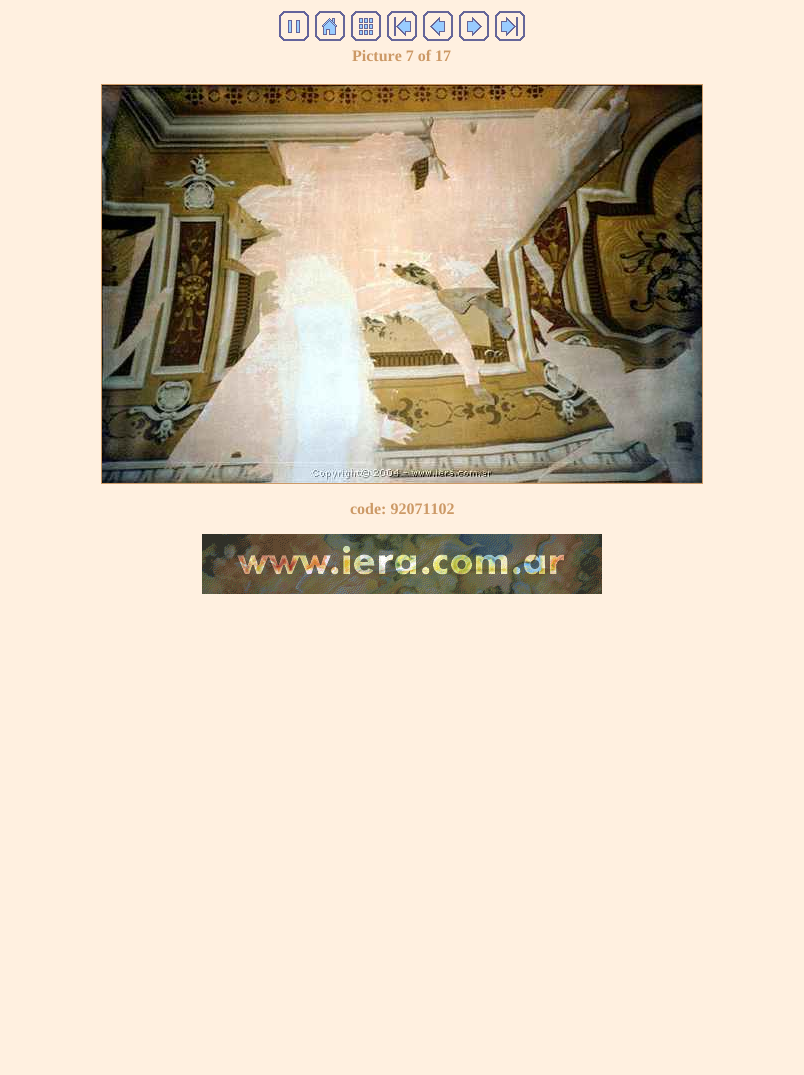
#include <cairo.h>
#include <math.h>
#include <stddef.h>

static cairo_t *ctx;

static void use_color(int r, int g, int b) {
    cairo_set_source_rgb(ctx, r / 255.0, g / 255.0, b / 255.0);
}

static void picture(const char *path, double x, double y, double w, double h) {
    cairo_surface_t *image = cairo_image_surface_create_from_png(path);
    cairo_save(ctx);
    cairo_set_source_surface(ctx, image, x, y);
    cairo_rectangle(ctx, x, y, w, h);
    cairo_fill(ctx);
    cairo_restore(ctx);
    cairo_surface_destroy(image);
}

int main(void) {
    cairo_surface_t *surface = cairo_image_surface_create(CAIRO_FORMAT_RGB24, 804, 1075);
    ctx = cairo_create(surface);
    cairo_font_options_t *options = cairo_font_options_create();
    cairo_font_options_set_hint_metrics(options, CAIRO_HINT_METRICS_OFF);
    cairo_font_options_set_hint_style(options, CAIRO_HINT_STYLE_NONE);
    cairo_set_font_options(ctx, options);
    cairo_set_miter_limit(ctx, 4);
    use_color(255, 240, 224);
    cairo_paint(ctx);
    picture("img1.png", 279, 11, 30, 30);
    picture("img2.png", 315, 11, 30, 30);
    picture("img3.png", 351, 11, 30, 30);
    picture("img4.png", 387, 11, 30, 30);
    picture("img5.png", 423, 11, 30, 30);
    picture("img6.png", 459, 11, 30, 30);
    picture("img7.png", 495, 11, 30, 30);
    cairo_select_font_face(ctx, "Liberation Serif", CAIRO_FONT_SLANT_NORMAL, CAIRO_FONT_WEIGHT_BOLD);
    cairo_set_font_size(ctx, 16);
    use_color(204, 153, 102);
    cairo_move_to(ctx, 352, 61);
    cairo_show_text(ctx, "Picture 7 of 17");
    cairo_rectangle(ctx, 101.5, 84.5, 601, 399);
    cairo_set_line_width(ctx, 1);
    cairo_stroke(ctx);
    picture("img8.png", 102, 85, 600, 398);
    cairo_move_to(ctx, 350, 514);
    cairo_show_text(ctx, "code: 92071102");
    picture("img9.png", 202, 534, 400, 60);
    cairo_surface_write_to_png(surface, "result.png");
    cairo_font_options_destroy(options);
    cairo_destroy(ctx);
    cairo_surface_destroy(surface);
    return 0;
}
